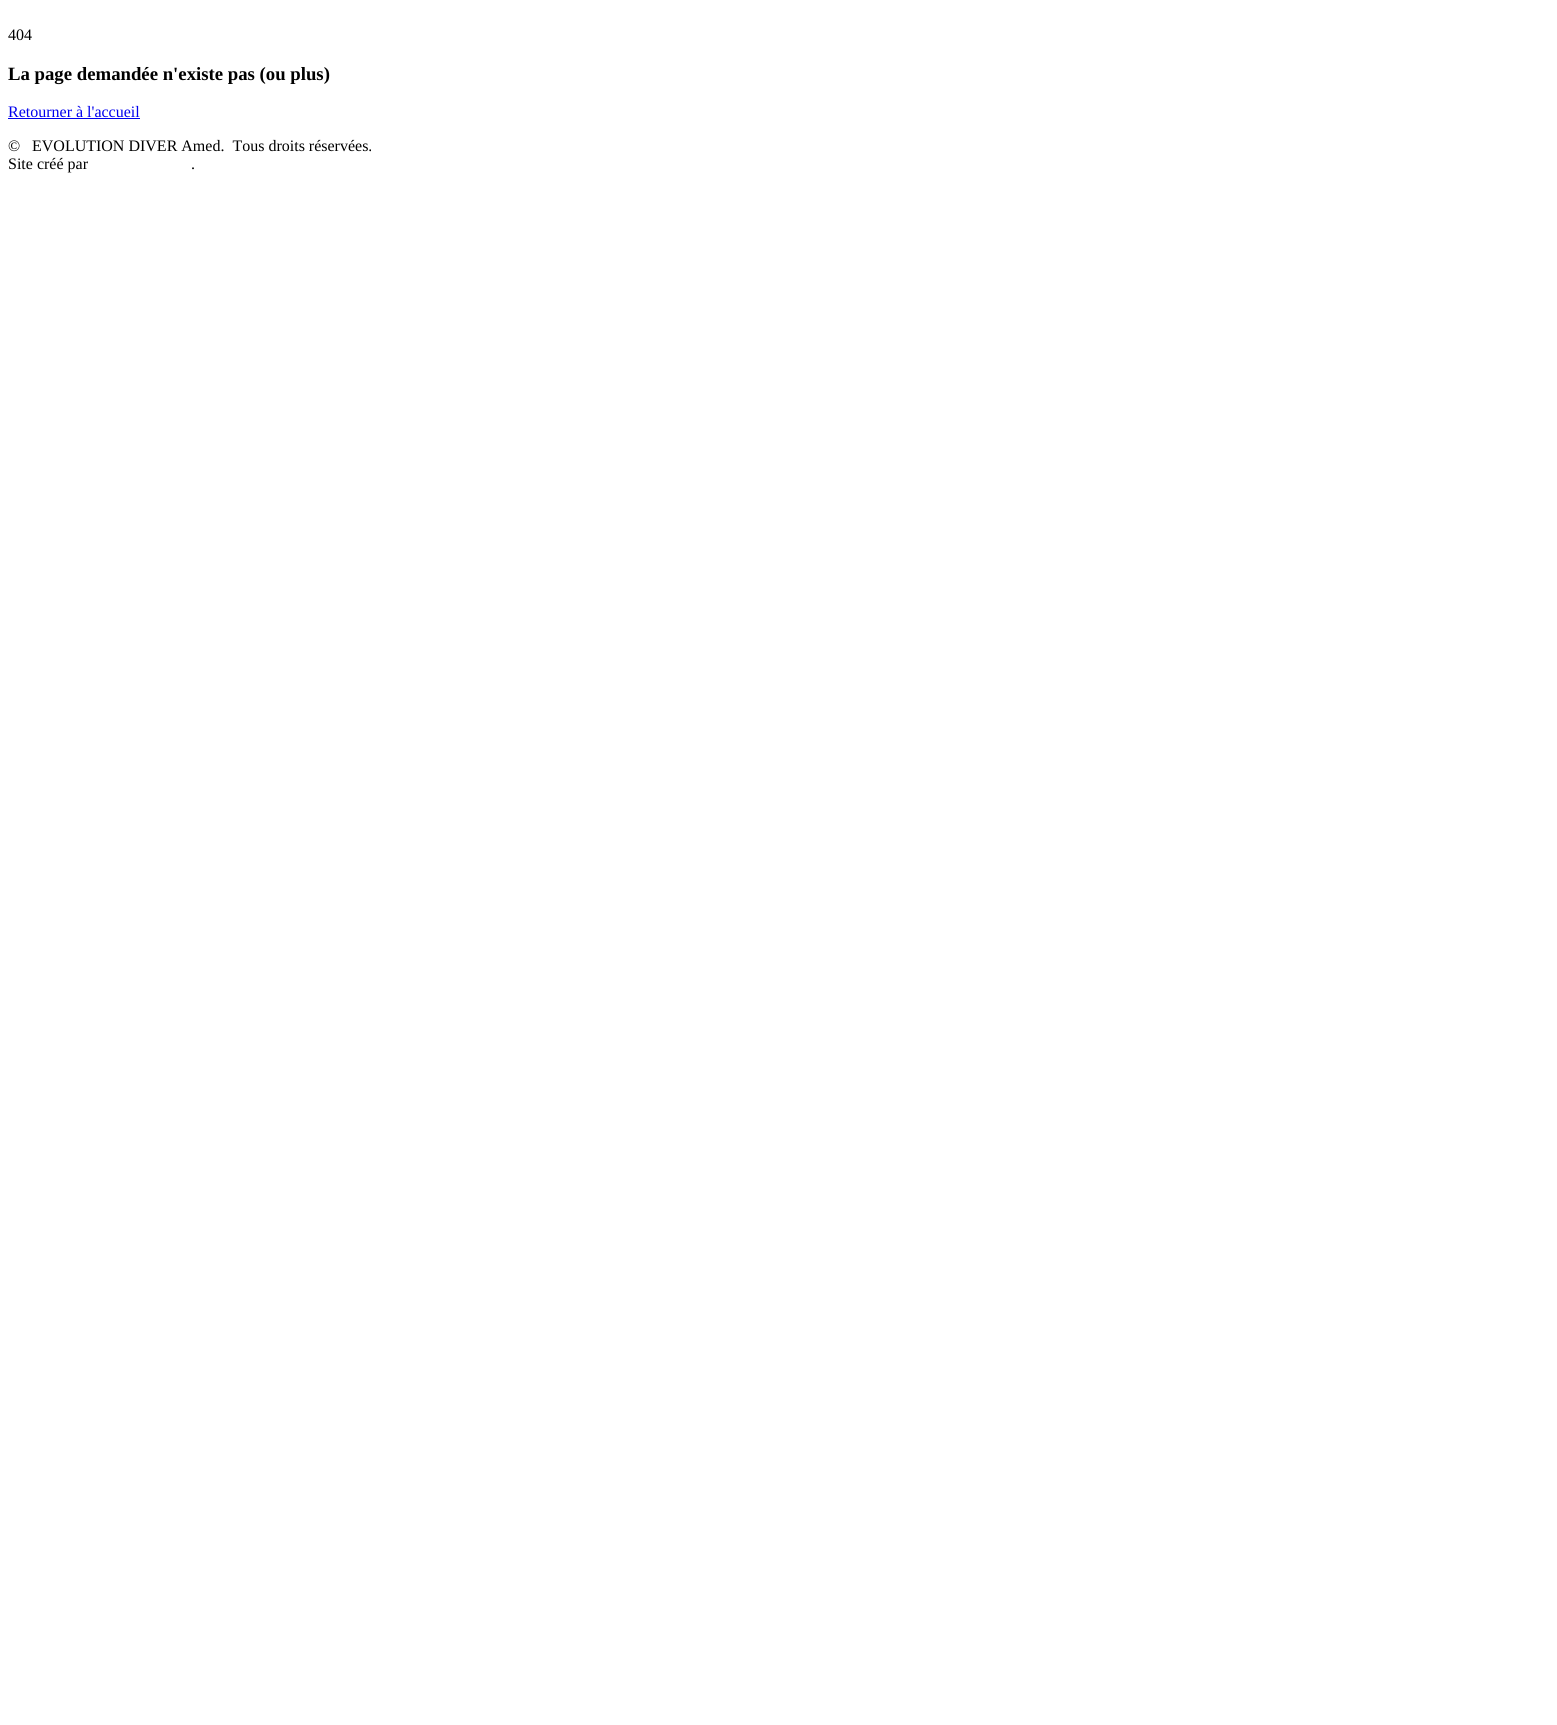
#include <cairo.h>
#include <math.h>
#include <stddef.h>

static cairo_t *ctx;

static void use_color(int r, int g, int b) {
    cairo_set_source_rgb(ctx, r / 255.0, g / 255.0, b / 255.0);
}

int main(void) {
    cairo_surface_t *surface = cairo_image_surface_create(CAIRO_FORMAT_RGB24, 1557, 1725);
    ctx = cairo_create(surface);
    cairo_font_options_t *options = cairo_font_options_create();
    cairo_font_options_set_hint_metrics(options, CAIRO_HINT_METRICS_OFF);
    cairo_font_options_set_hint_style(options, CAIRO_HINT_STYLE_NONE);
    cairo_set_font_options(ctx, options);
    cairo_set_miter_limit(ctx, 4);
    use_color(255, 255, 255);
    cairo_paint(ctx);
    cairo_select_font_face(ctx, "Liberation Serif", CAIRO_FONT_SLANT_NORMAL, CAIRO_FONT_WEIGHT_NORMAL);
    cairo_set_font_size(ctx, 16);
    use_color(0, 0, 0);
    cairo_move_to(ctx, 8, 40);
    cairo_show_text(ctx, "404");
    cairo_select_font_face(ctx, "Liberation Serif", CAIRO_FONT_SLANT_NORMAL, CAIRO_FONT_WEIGHT_BOLD);
    cairo_set_font_size(ctx, 18.75);
    cairo_move_to(ctx, 8, 80);
    cairo_show_text(ctx, "La page demandée n'existe pas (ou plus)");
    cairo_select_font_face(ctx, "Liberation Serif", CAIRO_FONT_SLANT_NORMAL, CAIRO_FONT_WEIGHT_NORMAL);
    cairo_set_font_size(ctx, 16);
    use_color(0, 0, 238);
    cairo_move_to(ctx, 8, 117);
    cairo_show_text(ctx, "Retourner à l'accueil");
    cairo_rectangle(ctx, 8, 118, 132, 1);
    cairo_fill(ctx);
    use_color(0, 0, 0);
    cairo_move_to(ctx, 8, 151);
    cairo_show_text(ctx, "©");
    cairo_move_to(ctx, 32, 151);
    cairo_show_text(ctx, "EVOLUTION DIVER Amed.  Tous droits réservées.");
    cairo_move_to(ctx, 8, 169);
    cairo_show_text(ctx, "Site créé par");
    cairo_move_to(ctx, 191, 169);
    cairo_show_text(ctx, ".");
    cairo_surface_write_to_png(surface, "result.png");
    cairo_font_options_destroy(options);
    cairo_destroy(ctx);
    cairo_surface_destroy(surface);
    return 0;
}
